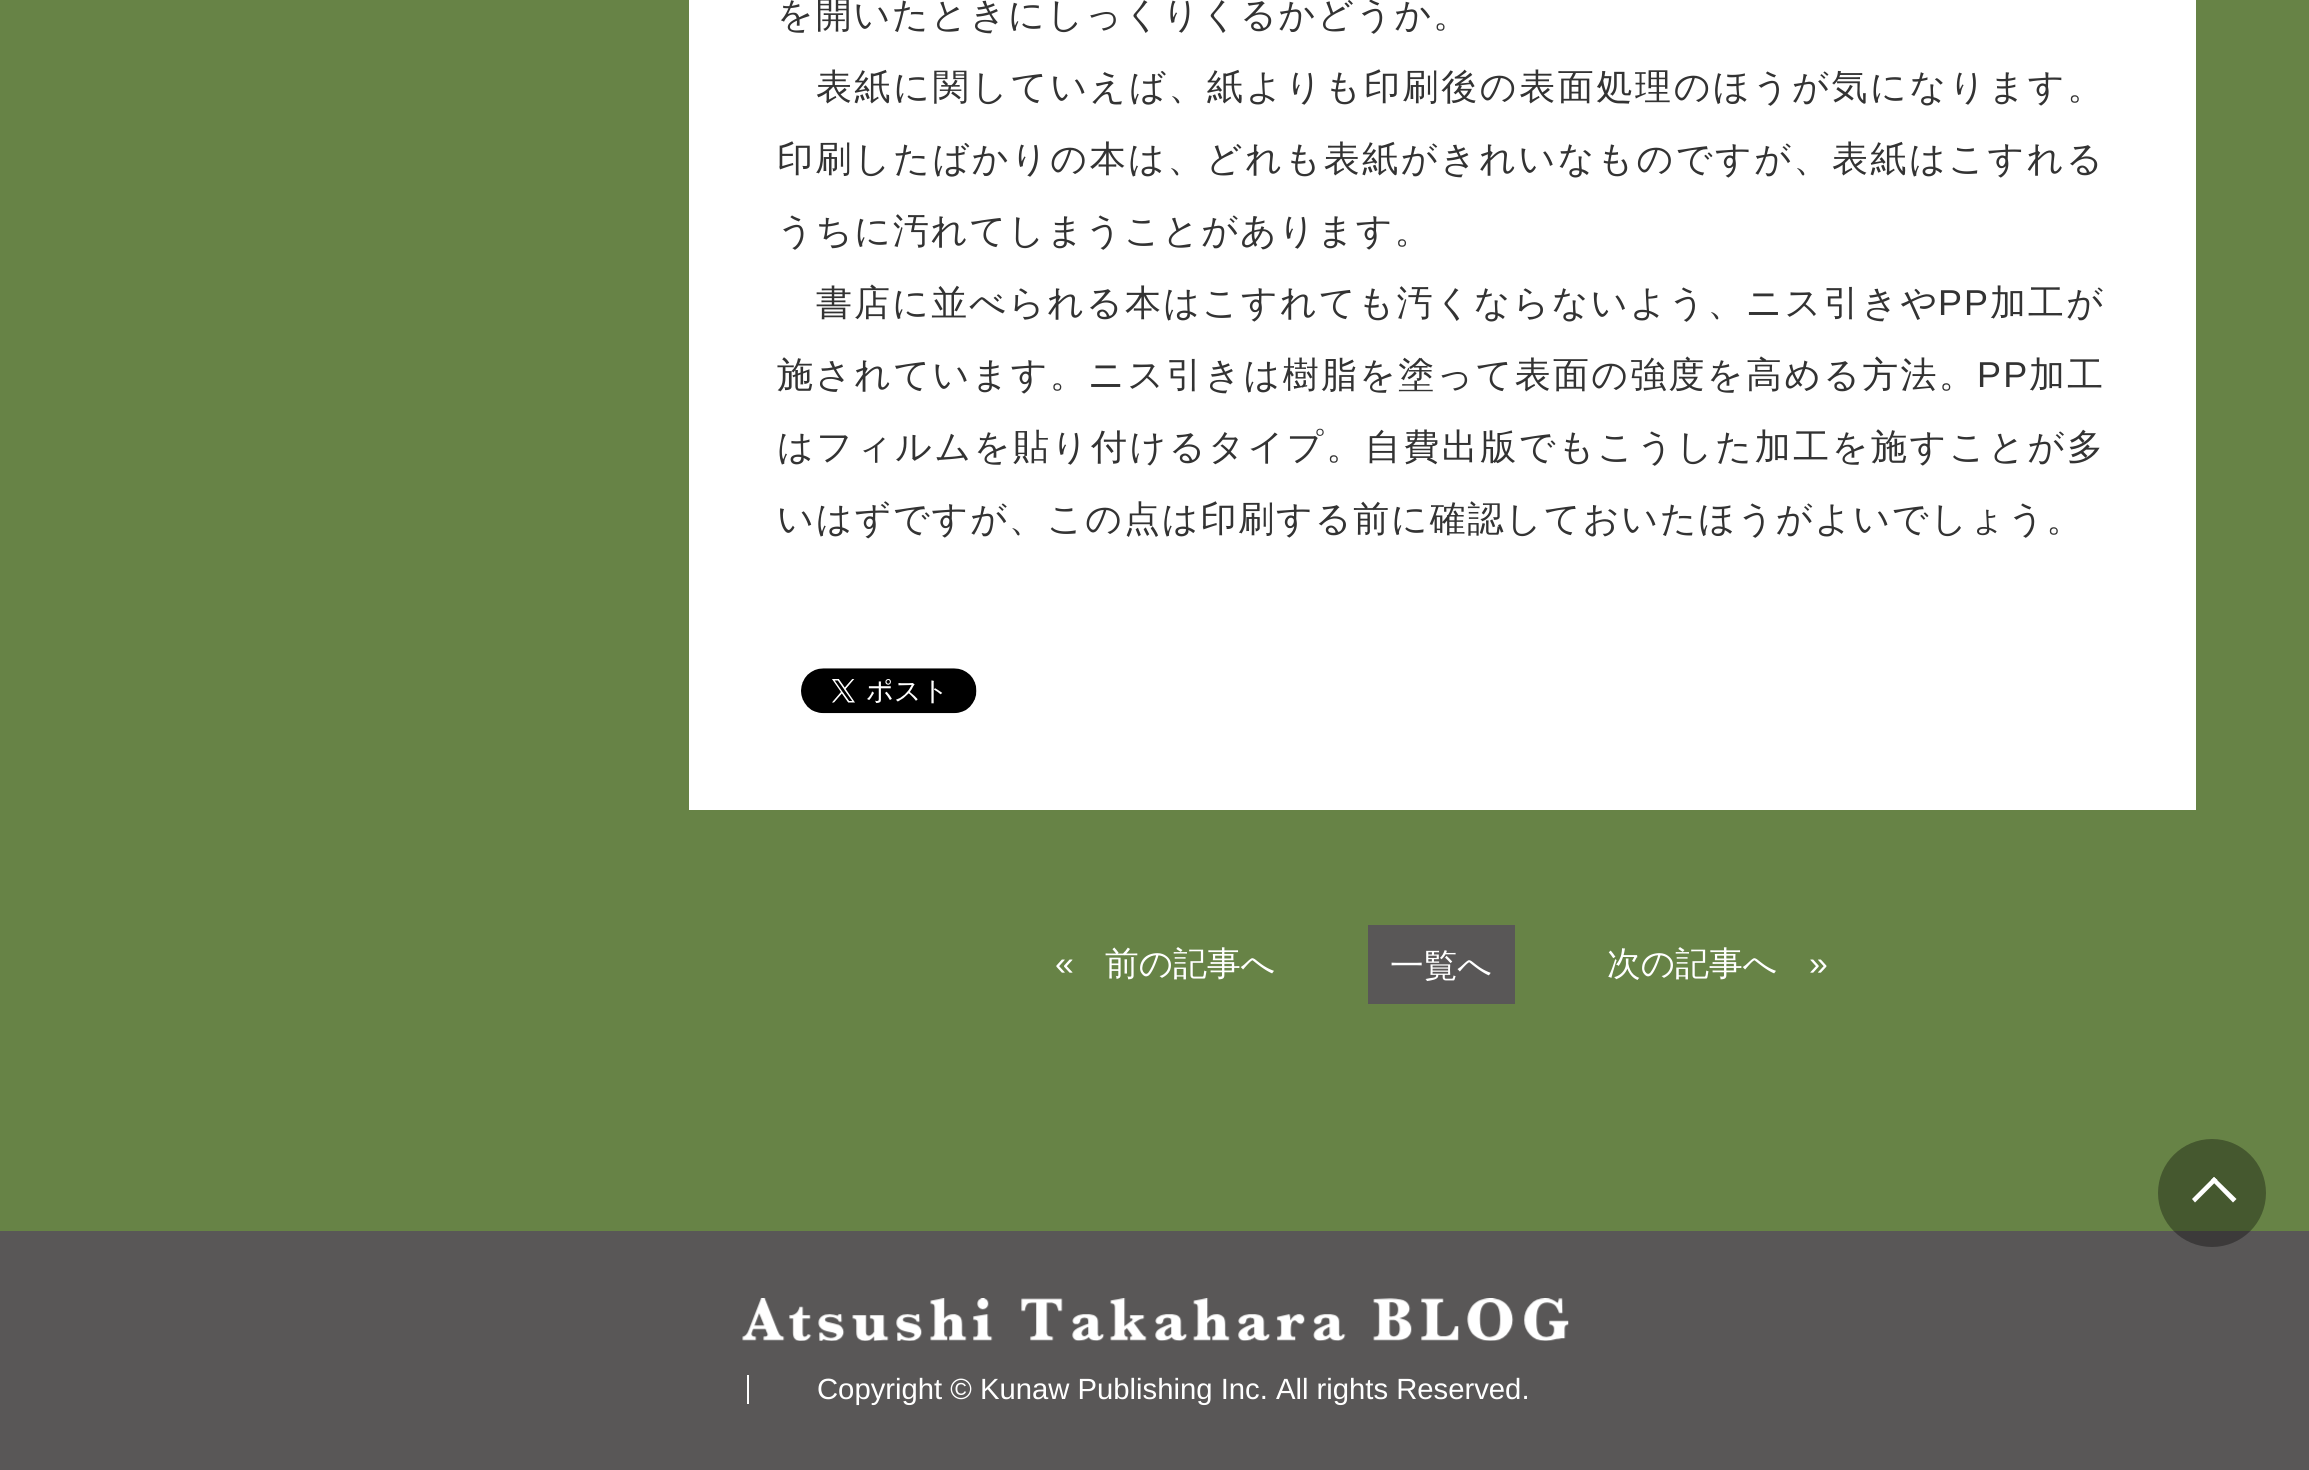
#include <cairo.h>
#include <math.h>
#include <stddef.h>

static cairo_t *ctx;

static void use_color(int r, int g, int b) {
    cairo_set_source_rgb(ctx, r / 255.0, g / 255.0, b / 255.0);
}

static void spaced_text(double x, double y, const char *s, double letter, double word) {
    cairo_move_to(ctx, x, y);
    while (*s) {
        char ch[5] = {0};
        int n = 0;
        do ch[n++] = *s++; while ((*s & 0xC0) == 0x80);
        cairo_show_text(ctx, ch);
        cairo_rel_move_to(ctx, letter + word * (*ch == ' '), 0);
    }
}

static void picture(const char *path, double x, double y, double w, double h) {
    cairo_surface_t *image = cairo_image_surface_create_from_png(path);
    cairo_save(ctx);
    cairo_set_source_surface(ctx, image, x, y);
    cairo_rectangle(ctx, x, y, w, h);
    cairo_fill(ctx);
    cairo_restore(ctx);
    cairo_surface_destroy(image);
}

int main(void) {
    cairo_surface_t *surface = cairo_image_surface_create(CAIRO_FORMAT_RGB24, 2309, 1470);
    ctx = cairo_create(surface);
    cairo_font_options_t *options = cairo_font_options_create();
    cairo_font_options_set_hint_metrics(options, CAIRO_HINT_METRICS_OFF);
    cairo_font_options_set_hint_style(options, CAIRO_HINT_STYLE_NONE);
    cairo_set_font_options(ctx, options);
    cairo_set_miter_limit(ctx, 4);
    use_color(103, 131, 70);
    cairo_paint(ctx);
    use_color(255, 255, 255);
    cairo_rectangle(ctx, 689, 0, 1507, 810);
    cairo_fill(ctx);
    cairo_select_font_face(ctx, "WenQuanYi Zen Hei Medium", CAIRO_FONT_SLANT_NORMAL, CAIRO_FONT_WEIGHT_NORMAL);
    cairo_set_font_size(ctx, 36);
    use_color(51, 51, 51);
    spaced_text(777, 27, "を開いたときにしっくりくるかどうか。", 1.8, 0);
    spaced_text(816, 99, "表紙に関していえば、紙よりも印刷後の表面処理のほうが気になります。", 2.6, 0);
    spaced_text(777, 171, "印刷したばかりの本は、どれも表紙がきれいなものですが、表紙はこすれる", 2.45, 0);
    spaced_text(777, 243, "うちに汚れてしまうことがあります。", 1.8, 0);
    spaced_text(816, 315, "書店に並べられる本はこすれても汚くならないよう、ニス引きや", 2.1, 0);
    cairo_select_font_face(ctx, "Liberation Sans", CAIRO_FONT_SLANT_NORMAL, CAIRO_FONT_WEIGHT_NORMAL);
    spaced_text(1938, 315, "PP", 2.1, 0);
    cairo_select_font_face(ctx, "WenQuanYi Zen Hei Medium", CAIRO_FONT_SLANT_NORMAL, CAIRO_FONT_WEIGHT_NORMAL);
    spaced_text(1990, 315, "加工が", 2.1, 0);
    spaced_text(777, 387, "施されています。ニス引きは樹脂を塗って表面の強度を高める方法。", 2.25, 0);
    cairo_select_font_face(ctx, "Liberation Sans", CAIRO_FONT_SLANT_NORMAL, CAIRO_FONT_WEIGHT_NORMAL);
    spaced_text(1977, 387, "PP", 2.25, 0);
    cairo_select_font_face(ctx, "WenQuanYi Zen Hei Medium", CAIRO_FONT_SLANT_NORMAL, CAIRO_FONT_WEIGHT_NORMAL);
    spaced_text(2029, 387, "加工", 2.25, 0);
    spaced_text(777, 459, "はフィルムを貼り付けるタイプ。自費出版でもこうした加工を施すことが多", 2.5, 0);
    spaced_text(777, 531, "いはずですが、この点は印刷する前に確認しておいたほうがよいでしょう。", 1.8, 0);
    picture("img1.png", 801, 668, 176, 46);
    cairo_select_font_face(ctx, "Liberation Sans", CAIRO_FONT_SLANT_NORMAL, CAIRO_FONT_WEIGHT_NORMAL);
    cairo_set_font_size(ctx, 33.75);
    use_color(255, 255, 255);
    cairo_move_to(ctx, 1055, 975);
    cairo_show_text(ctx, "«");
    cairo_select_font_face(ctx, "WenQuanYi Zen Hei Medium", CAIRO_FONT_SLANT_NORMAL, CAIRO_FONT_WEIGHT_NORMAL);
    cairo_move_to(ctx, 1105, 975);
    cairo_show_text(ctx, "前の記事へ");
    use_color(89, 87, 87);
    cairo_rectangle(ctx, 1368, 925, 147, 79);
    cairo_fill(ctx);
    use_color(255, 255, 255);
    cairo_move_to(ctx, 1390, 977);
    cairo_show_text(ctx, "一覧へ");
    cairo_move_to(ctx, 1607, 975);
    cairo_show_text(ctx, "次の記事へ");
    cairo_select_font_face(ctx, "Liberation Sans", CAIRO_FONT_SLANT_NORMAL, CAIRO_FONT_WEIGHT_NORMAL);
    cairo_move_to(ctx, 1809, 975);
    cairo_show_text(ctx, "»");
    use_color(89, 87, 87);
    cairo_rectangle(ctx, 0, 1231, 2309, 239);
    cairo_fill(ctx);
    picture("img2.png", 742, 1298, 827, 43);
    use_color(255, 255, 255);
    cairo_rectangle(ctx, 747, 1375, 2, 29);
    cairo_fill(ctx);
    cairo_set_font_size(ctx, 29.25);
    cairo_move_to(ctx, 817, 1399);
    cairo_show_text(ctx, "Copyright © Kunaw Publishing Inc. All rights Reserved.");
    cairo_set_source_rgba(ctx, 0, 0, 0, 0.33);
    cairo_new_path(ctx);
    cairo_arc(ctx, 2212, 1193, 54, 0, 2 * M_PI);
    cairo_fill(ctx);
    use_color(255, 255, 255);
    cairo_new_path(ctx);
    cairo_move_to(ctx, 2214, 1177);
    cairo_line_to(ctx, 2236.5, 1199);
    cairo_line_to(ctx, 2233, 1202.5);
    cairo_line_to(ctx, 2211, 1180);
    cairo_close_path(ctx);
    cairo_fill(ctx);
    cairo_new_path(ctx);
    cairo_move_to(ctx, 2214, 1177);
    cairo_line_to(ctx, 2217.5, 1180);
    cairo_line_to(ctx, 2195, 1202.5);
    cairo_line_to(ctx, 2192, 1199);
    cairo_close_path(ctx);
    cairo_fill(ctx);
    cairo_surface_write_to_png(surface, "result.png");
    cairo_font_options_destroy(options);
    cairo_destroy(ctx);
    cairo_surface_destroy(surface);
    return 0;
}
